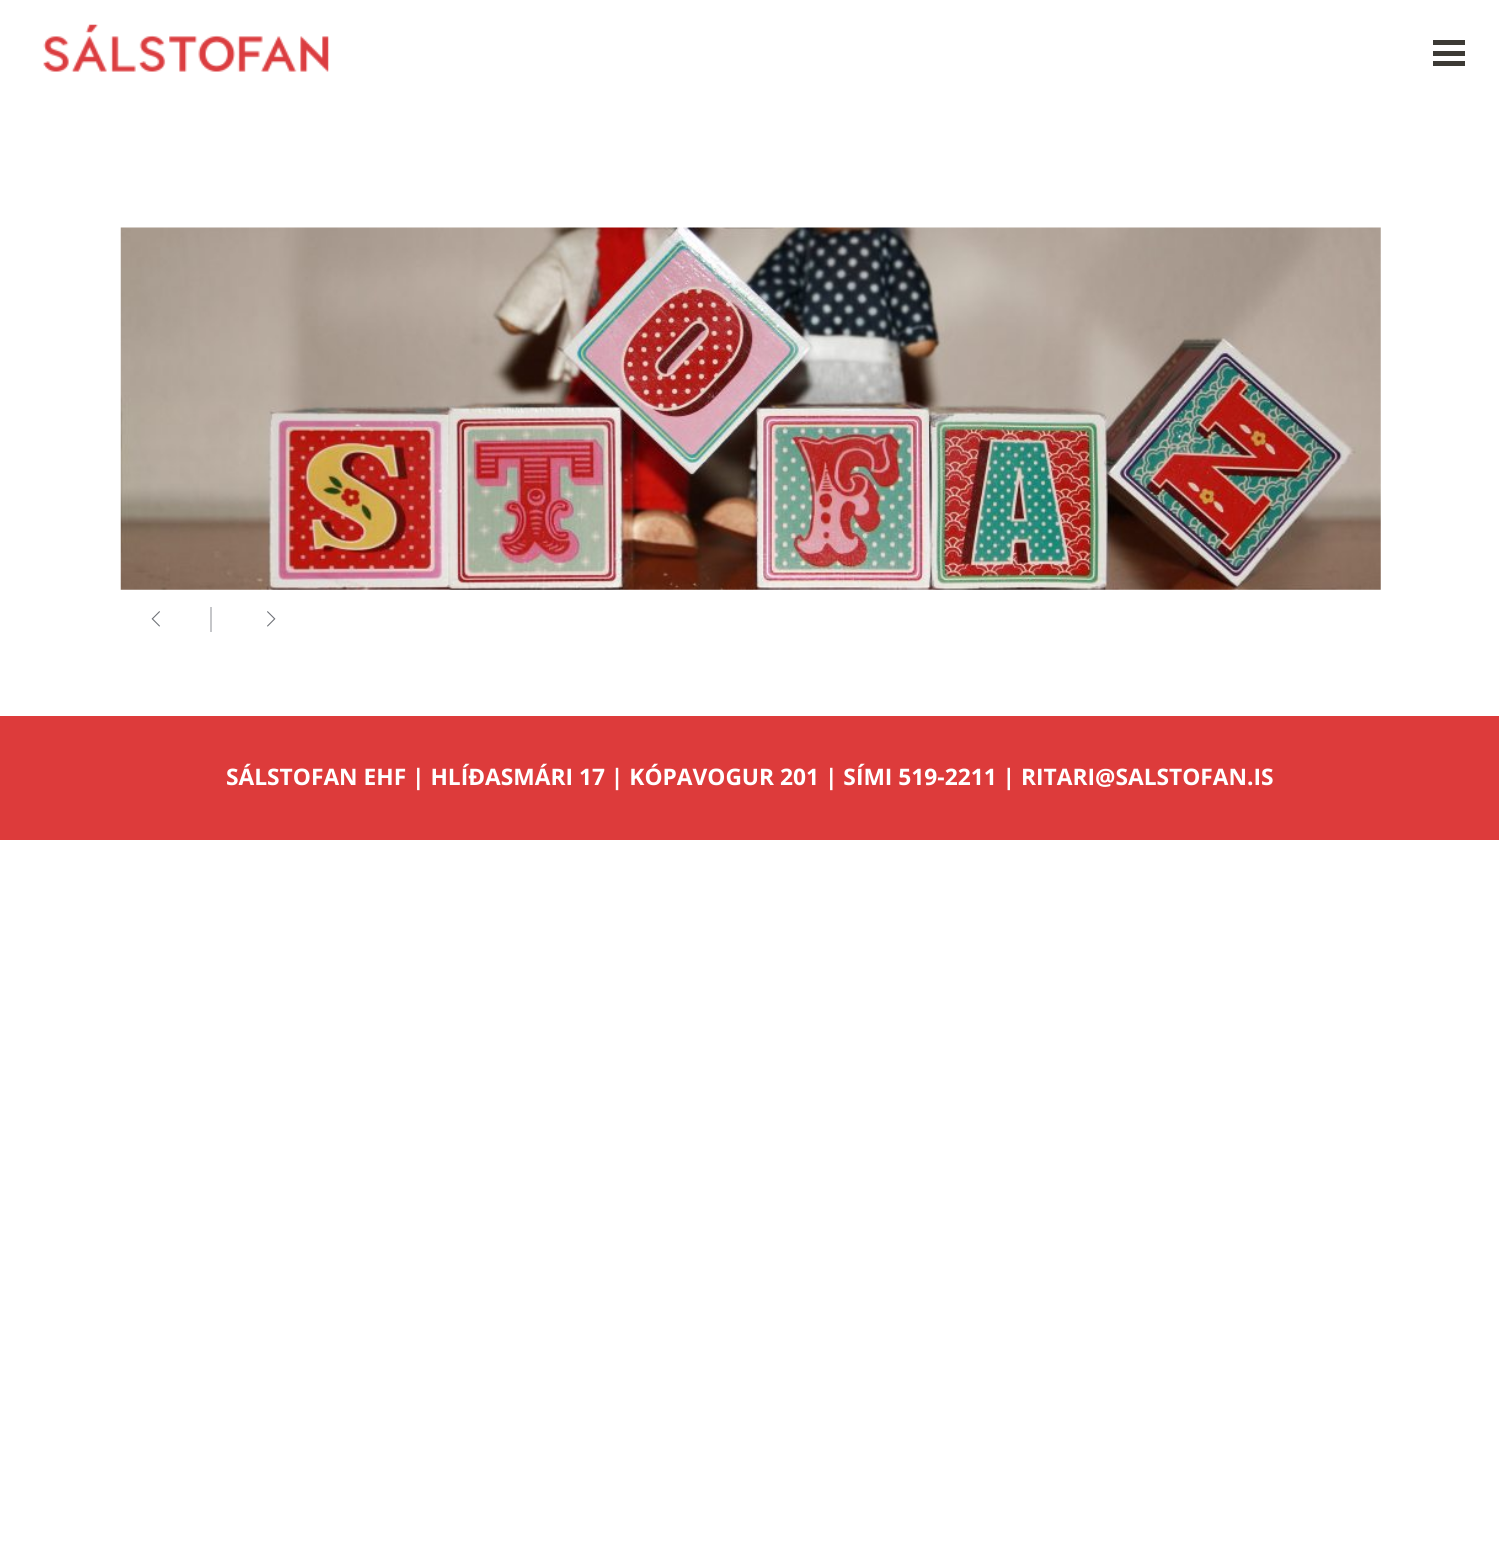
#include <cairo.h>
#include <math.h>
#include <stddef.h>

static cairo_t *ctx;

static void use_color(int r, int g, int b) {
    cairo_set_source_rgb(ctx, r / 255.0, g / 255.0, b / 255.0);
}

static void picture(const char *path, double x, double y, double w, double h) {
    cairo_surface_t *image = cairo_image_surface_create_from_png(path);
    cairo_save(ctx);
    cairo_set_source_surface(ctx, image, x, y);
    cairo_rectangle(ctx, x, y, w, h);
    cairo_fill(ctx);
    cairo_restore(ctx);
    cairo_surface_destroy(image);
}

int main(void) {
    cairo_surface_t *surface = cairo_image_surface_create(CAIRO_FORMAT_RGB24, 1499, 1546);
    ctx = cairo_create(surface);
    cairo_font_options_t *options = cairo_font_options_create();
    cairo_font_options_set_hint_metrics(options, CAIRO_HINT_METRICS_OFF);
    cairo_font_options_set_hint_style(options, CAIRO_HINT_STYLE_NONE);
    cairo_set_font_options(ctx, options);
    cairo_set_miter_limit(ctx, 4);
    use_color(255, 255, 255);
    cairo_paint(ctx);
    picture("img1.png", 43, 24, 286, 48);
    use_color(60, 58, 53);
    cairo_rectangle(ctx, 1433, 40, 32, 5);
    cairo_fill(ctx);
    cairo_rectangle(ctx, 1433, 51, 32, 5);
    cairo_fill(ctx);
    cairo_rectangle(ctx, 1433, 61, 32, 5);
    cairo_fill(ctx);
    picture("img2.png", 120, 227, 1261, 363);
    picture("img3.png", 151, 611, 9, 16);
    use_color(197, 198, 201);
    cairo_rectangle(ctx, 210, 607, 2, 25);
    cairo_fill(ctx);
    picture("img4.png", 267, 611, 9, 16);
    use_color(221, 59, 59);
    cairo_rectangle(ctx, 0, 716, 1499, 124);
    cairo_fill(ctx);
    cairo_select_font_face(ctx, "Open Sans", CAIRO_FONT_SLANT_NORMAL, CAIRO_FONT_WEIGHT_BOLD);
    cairo_set_font_size(ctx, 22.75);
    use_color(255, 255, 255);
    cairo_move_to(ctx, 226, 785);
    cairo_show_text(ctx, "SÁLSTOFAN EHF | HLÍÐASMÁRI 17 | KÓPAVOGUR 201 | SÍMI 519-2211 | RITARI@SALSTOFAN.IS");
    cairo_surface_write_to_png(surface, "result.png");
    cairo_font_options_destroy(options);
    cairo_destroy(ctx);
    cairo_surface_destroy(surface);
    return 0;
}
